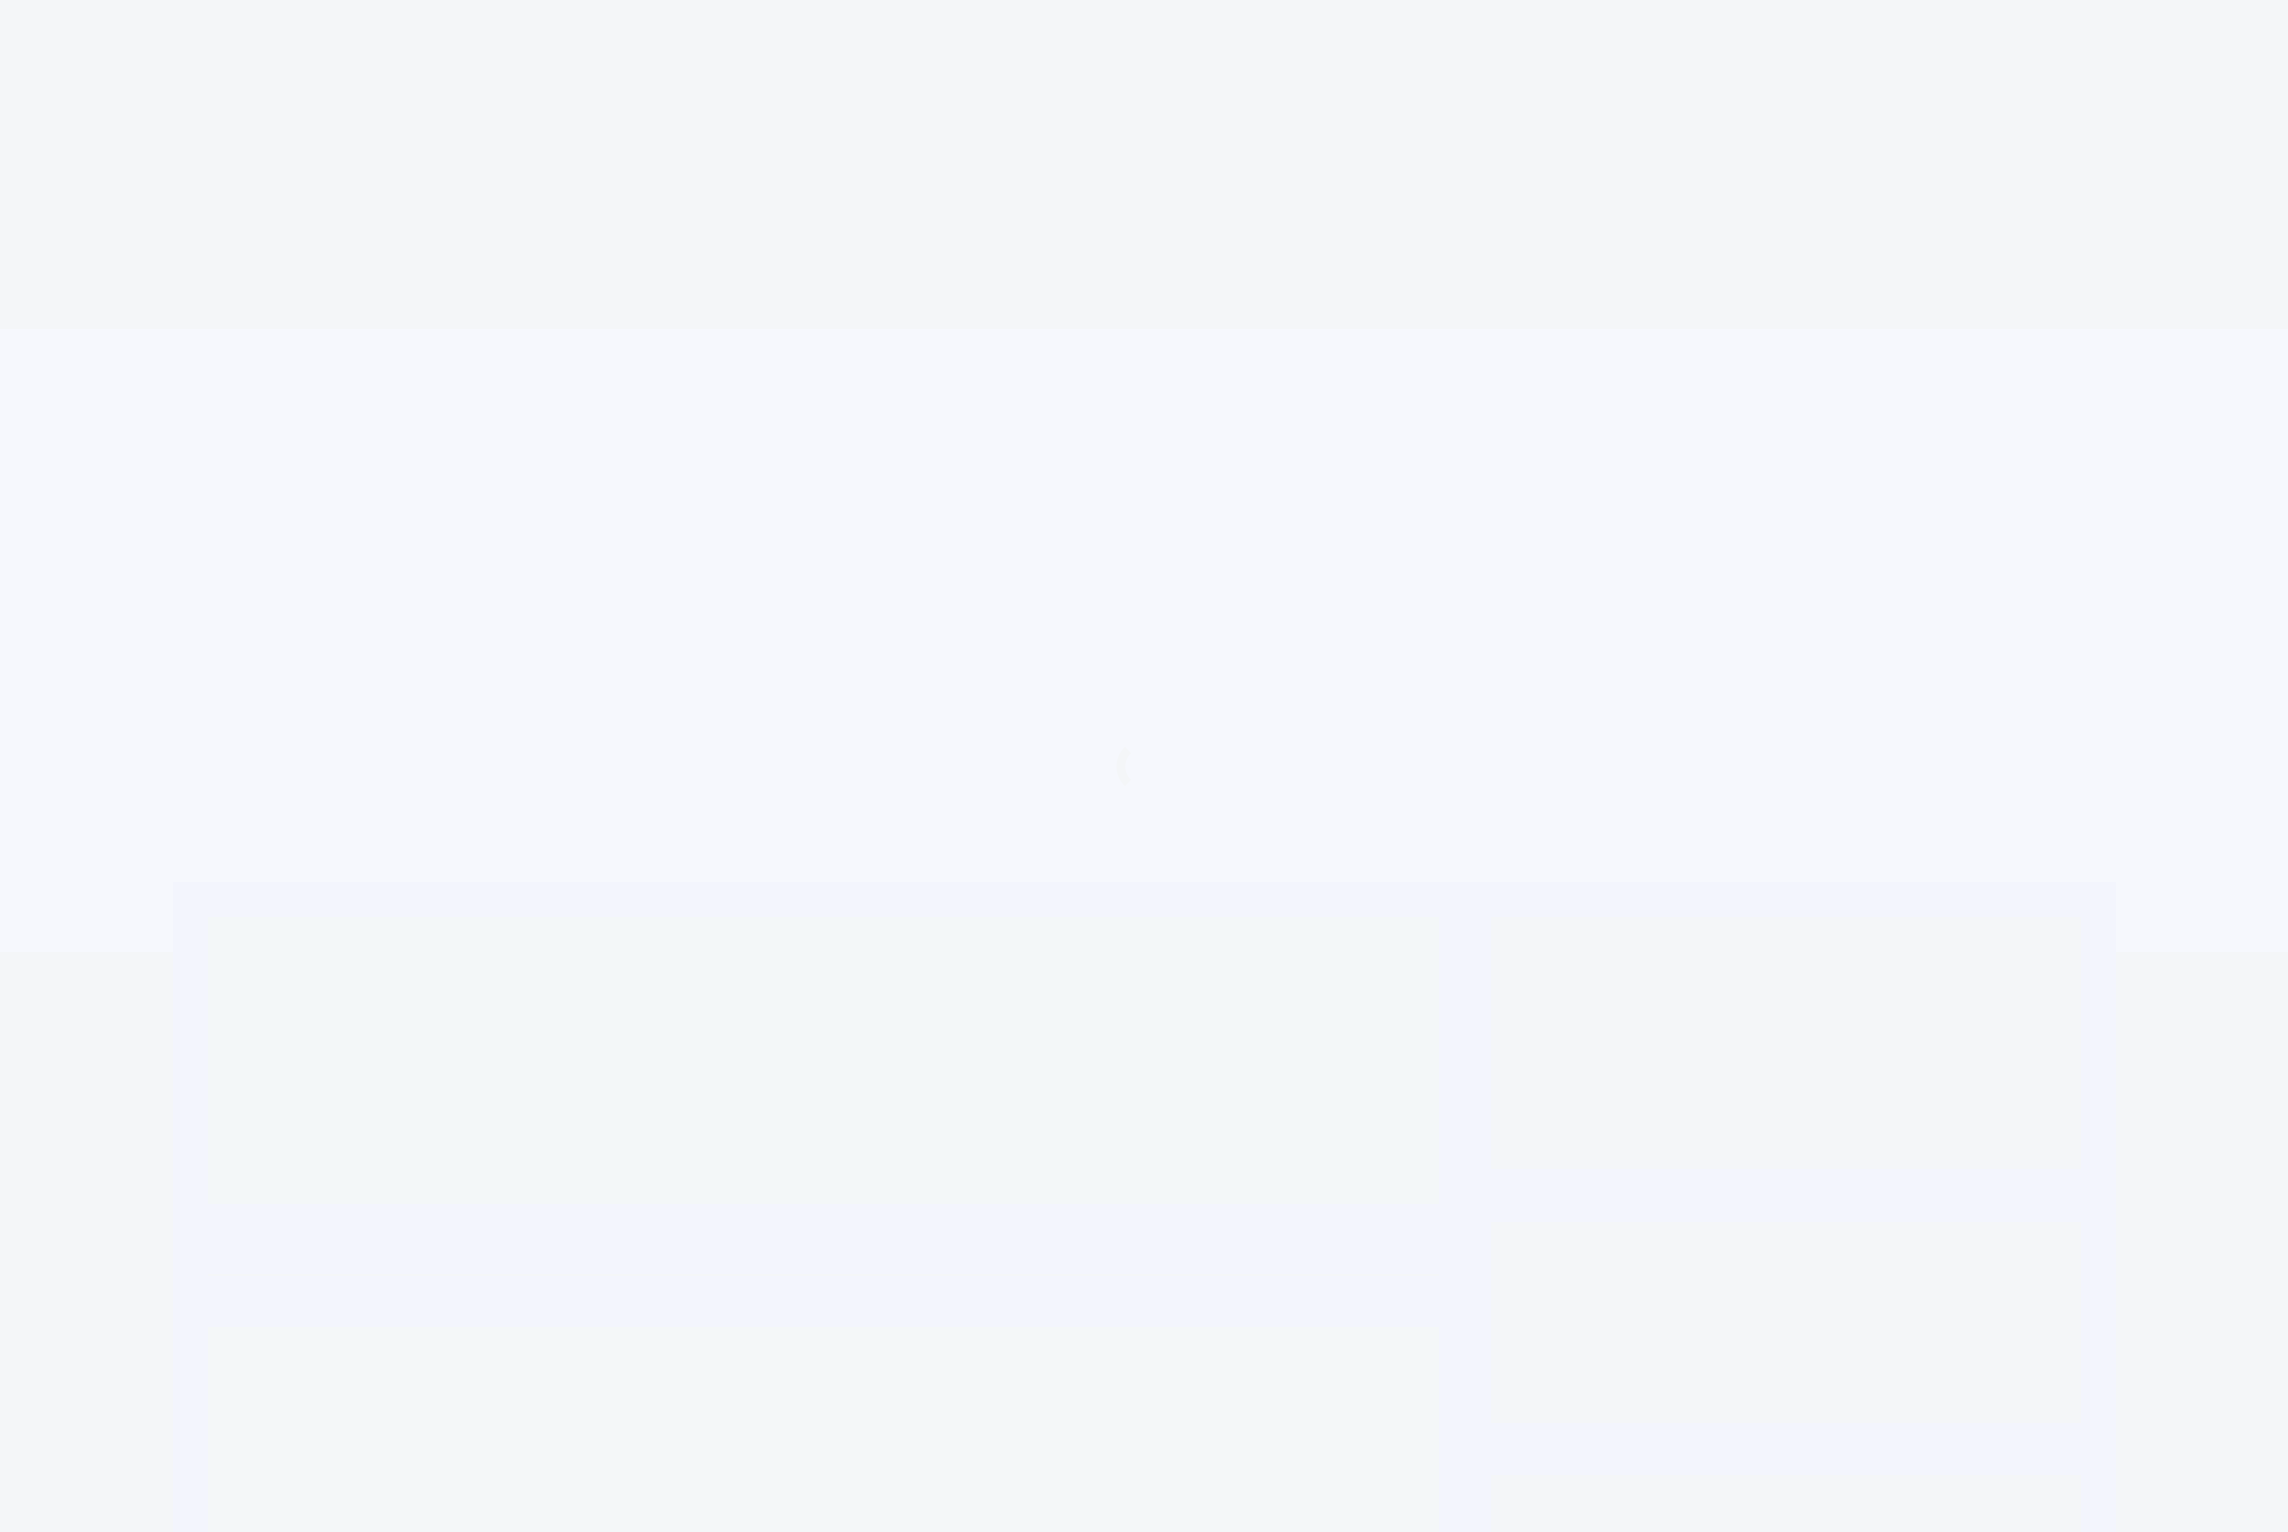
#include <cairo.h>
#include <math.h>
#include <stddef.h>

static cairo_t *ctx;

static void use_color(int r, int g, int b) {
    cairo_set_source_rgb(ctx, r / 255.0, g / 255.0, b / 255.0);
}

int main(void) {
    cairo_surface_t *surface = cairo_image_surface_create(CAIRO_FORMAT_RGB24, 2288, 1532);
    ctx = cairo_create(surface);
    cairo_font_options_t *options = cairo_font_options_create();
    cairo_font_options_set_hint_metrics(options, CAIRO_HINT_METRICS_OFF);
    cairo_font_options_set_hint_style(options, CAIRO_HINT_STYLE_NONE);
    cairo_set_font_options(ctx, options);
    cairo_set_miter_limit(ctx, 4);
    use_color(244, 246, 248);
    cairo_paint(ctx);
    use_color(246, 248, 253);
    cairo_rectangle(ctx, 0, 329, 2288, 623);
    cairo_fill(ctx);
    cairo_new_path(ctx);
    cairo_move_to(ctx, 1128, 783);
    cairo_curve_to(ctx, 1118.5, 774, 1118.5, 759, 1128, 750);
    use_color(244, 246, 248);
    cairo_set_line_width(ctx, 8.8);
    cairo_stroke(ctx);
    use_color(243, 245, 253);
    cairo_rectangle(ctx, 173, 882, 1943, 650);
    cairo_fill(ctx);
    use_color(244, 246, 248);
    cairo_rectangle(ctx, 208, 1274, 1231, 2);
    cairo_fill(ctx);
    use_color(243, 247, 248);
    cairo_rectangle(ctx, 208, 917, 1231, 287);
    cairo_fill(ctx);
    use_color(244, 247, 248);
    cairo_rectangle(ctx, 208, 1327, 1231, 205);
    cairo_fill(ctx);
    use_color(244, 246, 248);
    cairo_rectangle(ctx, 1491, 917, 590, 252);
    cairo_fill(ctx);
    cairo_rectangle(ctx, 1491, 1222, 590, 201);
    cairo_fill(ctx);
    cairo_rectangle(ctx, 1491, 1475, 590, 57);
    cairo_fill(ctx);
    cairo_surface_write_to_png(surface, "result.png");
    cairo_font_options_destroy(options);
    cairo_destroy(ctx);
    cairo_surface_destroy(surface);
    return 0;
}
